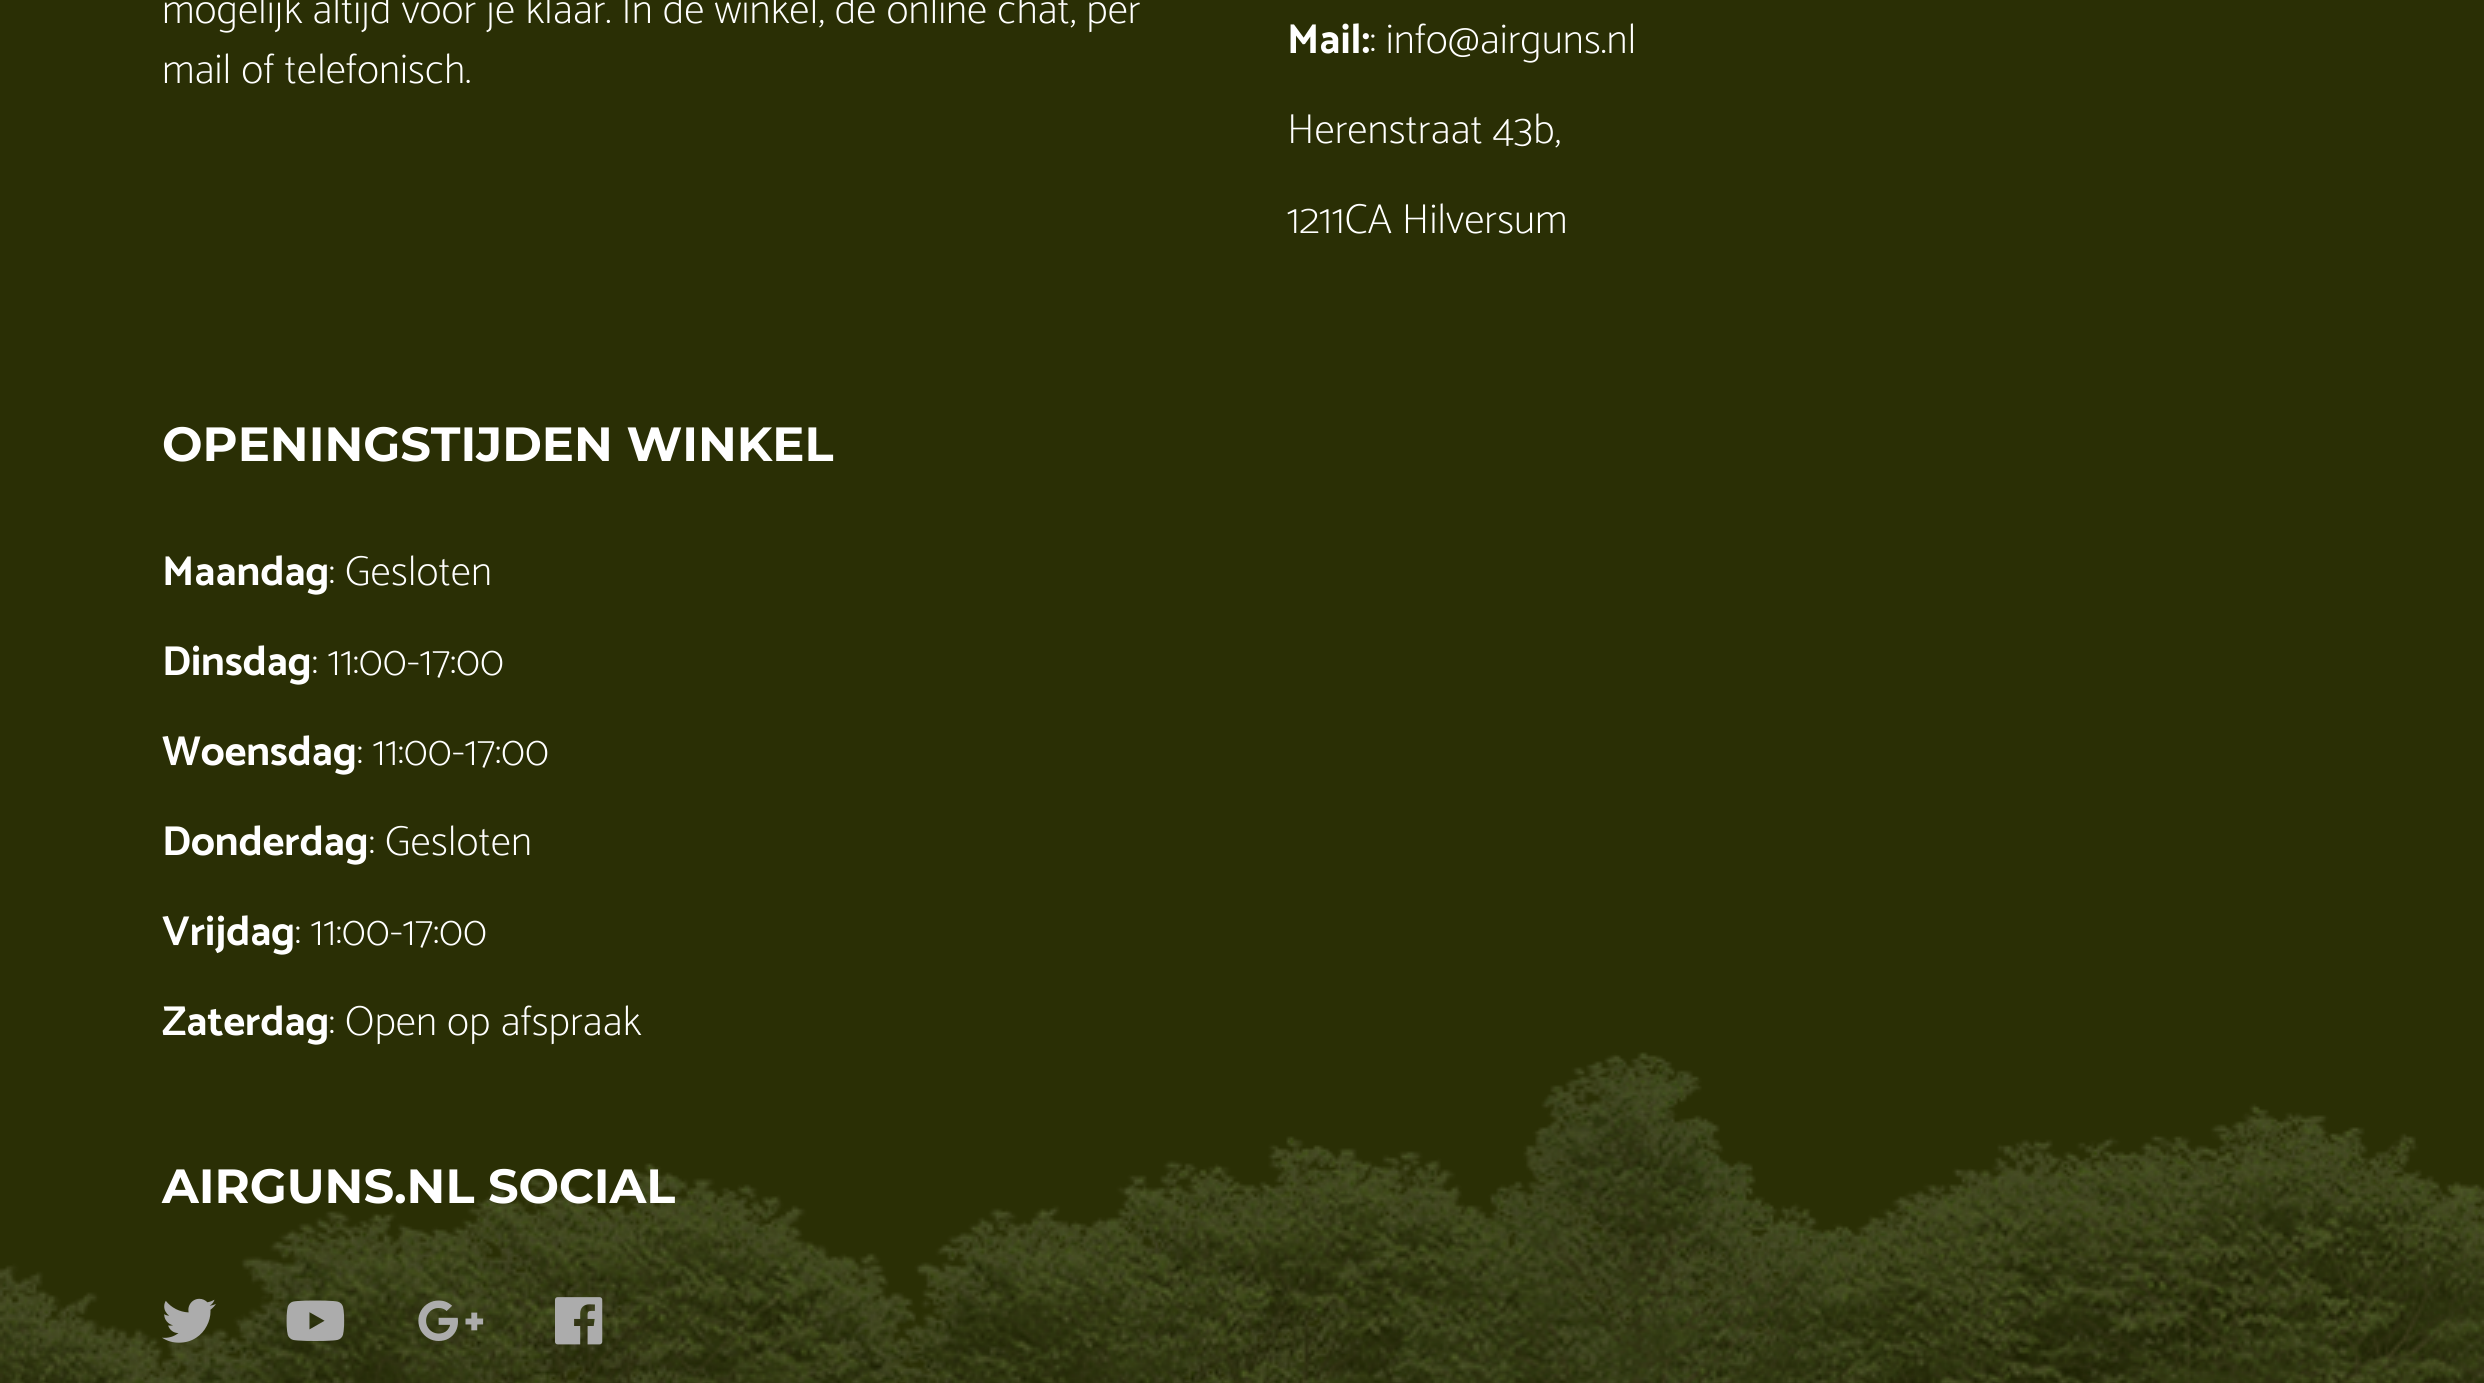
#include <cairo.h>
#include <math.h>
#include <stddef.h>

static cairo_t *ctx;

static void use_color(int r, int g, int b) {
    cairo_set_source_rgb(ctx, r / 255.0, g / 255.0, b / 255.0);
}

static void picture(const char *path, double x, double y, double w, double h) {
    cairo_surface_t *image = cairo_image_surface_create_from_png(path);
    cairo_save(ctx);
    cairo_set_source_surface(ctx, image, x, y);
    cairo_rectangle(ctx, x, y, w, h);
    cairo_fill(ctx);
    cairo_restore(ctx);
    cairo_surface_destroy(image);
}

int main(void) {
    cairo_surface_t *surface = cairo_image_surface_create(CAIRO_FORMAT_RGB24, 2484, 1383);
    ctx = cairo_create(surface);
    cairo_font_options_t *options = cairo_font_options_create();
    cairo_font_options_set_hint_metrics(options, CAIRO_HINT_METRICS_OFF);
    cairo_font_options_set_hint_style(options, CAIRO_HINT_STYLE_NONE);
    cairo_set_font_options(ctx, options);
    cairo_set_miter_limit(ctx, 4);
    use_color(42, 47, 5);
    cairo_paint(ctx);
    picture("img1.png", 0, 1052, 2484, 331);
    cairo_select_font_face(ctx, "Catamaran Thin", CAIRO_FONT_SLANT_NORMAL, CAIRO_FONT_WEIGHT_NORMAL);
    cairo_set_font_size(ctx, 42);
    use_color(255, 255, 255);
    cairo_move_to(ctx, 162, 23);
    cairo_show_text(ctx, "mogelijk altijd voor je klaar. In de winkel, de online chat, per");
    cairo_move_to(ctx, 162, 83);
    cairo_show_text(ctx, "mail of telefonisch.");
    cairo_select_font_face(ctx, "Catamaran", CAIRO_FONT_SLANT_NORMAL, CAIRO_FONT_WEIGHT_BOLD);
    cairo_move_to(ctx, 1287, 53);
    cairo_show_text(ctx, "Mail:");
    cairo_select_font_face(ctx, "Catamaran Thin", CAIRO_FONT_SLANT_NORMAL, CAIRO_FONT_WEIGHT_NORMAL);
    cairo_move_to(ctx, 1370, 53);
    cairo_show_text(ctx, ": info@airguns.nl");
    cairo_move_to(ctx, 1287, 143);
    cairo_show_text(ctx, "Herenstraat 43b,");
    cairo_move_to(ctx, 1287, 233);
    cairo_show_text(ctx, "1211CA Hilversum");
    cairo_select_font_face(ctx, "Montserrat", CAIRO_FONT_SLANT_NORMAL, CAIRO_FONT_WEIGHT_BOLD);
    cairo_set_font_size(ctx, 48);
    cairo_move_to(ctx, 162, 461);
    cairo_show_text(ctx, "OPENINGSTIJDEN WINKEL");
    cairo_select_font_face(ctx, "Catamaran", CAIRO_FONT_SLANT_NORMAL, CAIRO_FONT_WEIGHT_BOLD);
    cairo_set_font_size(ctx, 42);
    cairo_move_to(ctx, 162, 585);
    cairo_show_text(ctx, "Maandag");
    cairo_select_font_face(ctx, "Catamaran Thin", CAIRO_FONT_SLANT_NORMAL, CAIRO_FONT_WEIGHT_NORMAL);
    cairo_move_to(ctx, 329, 585);
    cairo_show_text(ctx, ": Gesloten");
    cairo_select_font_face(ctx, "Catamaran", CAIRO_FONT_SLANT_NORMAL, CAIRO_FONT_WEIGHT_BOLD);
    cairo_move_to(ctx, 162, 675);
    cairo_show_text(ctx, "Dinsdag");
    cairo_select_font_face(ctx, "Catamaran Thin", CAIRO_FONT_SLANT_NORMAL, CAIRO_FONT_WEIGHT_NORMAL);
    cairo_move_to(ctx, 312, 675);
    cairo_show_text(ctx, ": 11:00-17:00");
    cairo_select_font_face(ctx, "Catamaran", CAIRO_FONT_SLANT_NORMAL, CAIRO_FONT_WEIGHT_BOLD);
    cairo_move_to(ctx, 162, 765);
    cairo_show_text(ctx, "Woensdag");
    cairo_select_font_face(ctx, "Catamaran Thin", CAIRO_FONT_SLANT_NORMAL, CAIRO_FONT_WEIGHT_NORMAL);
    cairo_move_to(ctx, 357, 765);
    cairo_show_text(ctx, ": 11:00-17:00");
    cairo_select_font_face(ctx, "Catamaran", CAIRO_FONT_SLANT_NORMAL, CAIRO_FONT_WEIGHT_BOLD);
    cairo_move_to(ctx, 162, 855);
    cairo_show_text(ctx, "Donderdag");
    cairo_select_font_face(ctx, "Catamaran Thin", CAIRO_FONT_SLANT_NORMAL, CAIRO_FONT_WEIGHT_NORMAL);
    cairo_move_to(ctx, 369, 855);
    cairo_show_text(ctx, ": Gesloten");
    cairo_select_font_face(ctx, "Catamaran", CAIRO_FONT_SLANT_NORMAL, CAIRO_FONT_WEIGHT_BOLD);
    cairo_move_to(ctx, 162, 945);
    cairo_show_text(ctx, "Vrijdag");
    cairo_select_font_face(ctx, "Catamaran Thin", CAIRO_FONT_SLANT_NORMAL, CAIRO_FONT_WEIGHT_NORMAL);
    cairo_move_to(ctx, 295, 945);
    cairo_show_text(ctx, ": 11:00-17:00");
    cairo_select_font_face(ctx, "Catamaran", CAIRO_FONT_SLANT_NORMAL, CAIRO_FONT_WEIGHT_BOLD);
    cairo_move_to(ctx, 162, 1035);
    cairo_show_text(ctx, "Zaterdag");
    cairo_select_font_face(ctx, "Catamaran Thin", CAIRO_FONT_SLANT_NORMAL, CAIRO_FONT_WEIGHT_NORMAL);
    cairo_move_to(ctx, 329, 1035);
    cairo_show_text(ctx, ": Open op afspraak");
    cairo_select_font_face(ctx, "Montserrat", CAIRO_FONT_SLANT_NORMAL, CAIRO_FONT_WEIGHT_BOLD);
    cairo_set_font_size(ctx, 48);
    cairo_move_to(ctx, 162, 1203);
    cairo_show_text(ctx, "AIRGUNS.NL SOCIAL");
    picture("img2.png", 162, 1298, 54, 45);
    picture("img3.png", 286, 1300, 59, 41);
    picture("img4.png", 418, 1300, 66, 41);
    picture("img5.png", 555, 1297, 48, 48);
    cairo_surface_write_to_png(surface, "result.png");
    cairo_font_options_destroy(options);
    cairo_destroy(ctx);
    cairo_surface_destroy(surface);
    return 0;
}
